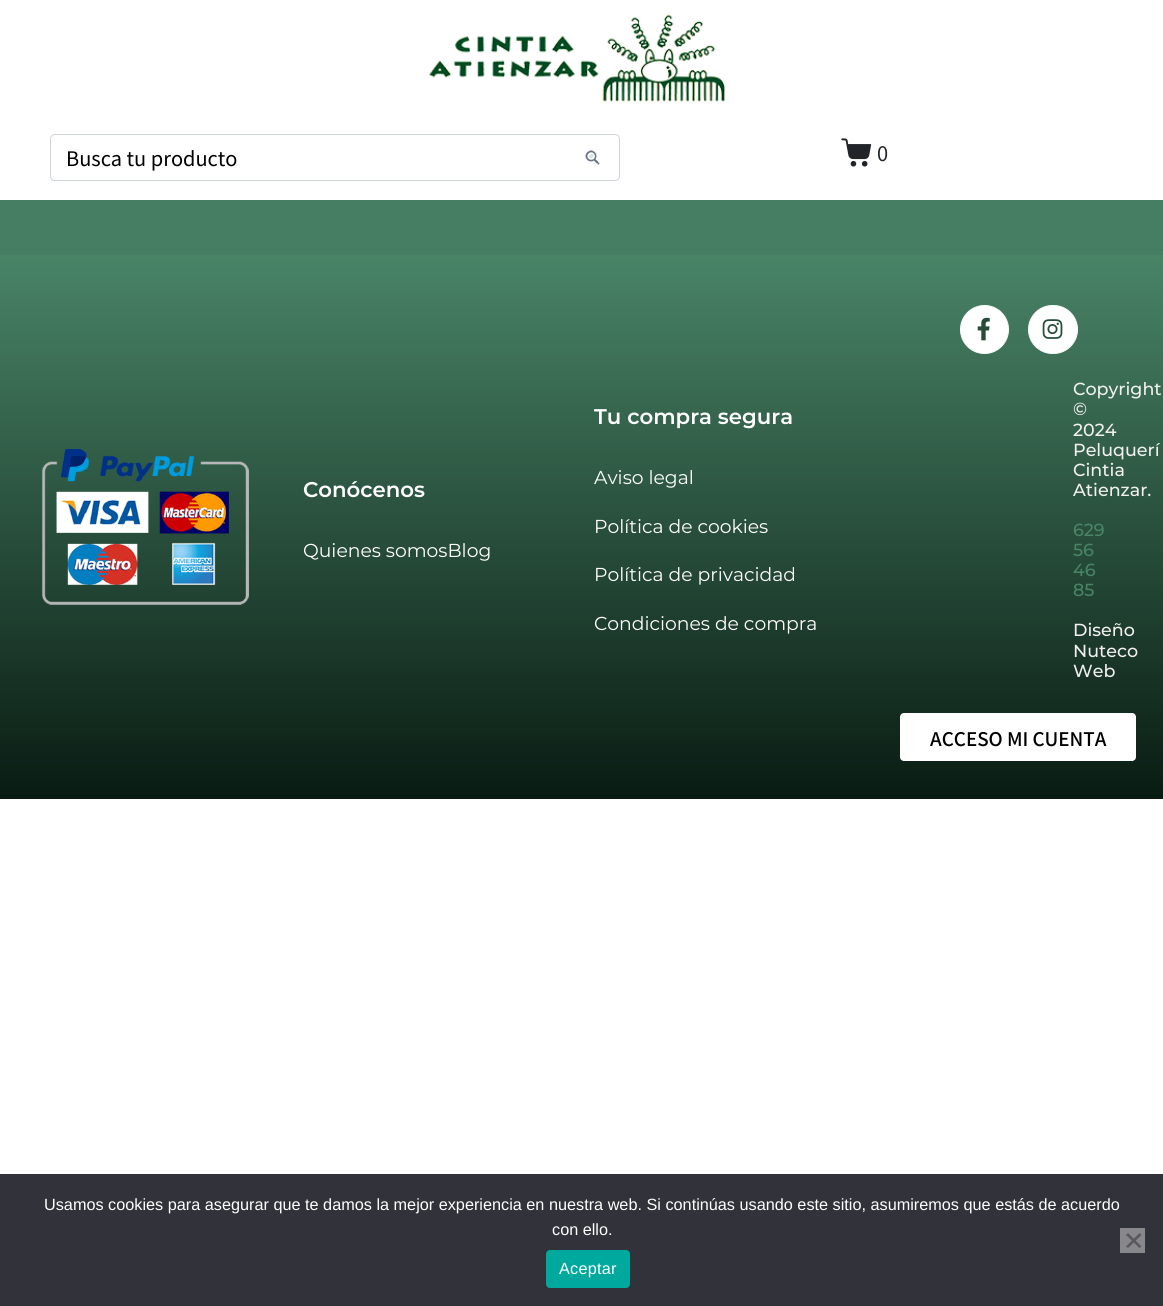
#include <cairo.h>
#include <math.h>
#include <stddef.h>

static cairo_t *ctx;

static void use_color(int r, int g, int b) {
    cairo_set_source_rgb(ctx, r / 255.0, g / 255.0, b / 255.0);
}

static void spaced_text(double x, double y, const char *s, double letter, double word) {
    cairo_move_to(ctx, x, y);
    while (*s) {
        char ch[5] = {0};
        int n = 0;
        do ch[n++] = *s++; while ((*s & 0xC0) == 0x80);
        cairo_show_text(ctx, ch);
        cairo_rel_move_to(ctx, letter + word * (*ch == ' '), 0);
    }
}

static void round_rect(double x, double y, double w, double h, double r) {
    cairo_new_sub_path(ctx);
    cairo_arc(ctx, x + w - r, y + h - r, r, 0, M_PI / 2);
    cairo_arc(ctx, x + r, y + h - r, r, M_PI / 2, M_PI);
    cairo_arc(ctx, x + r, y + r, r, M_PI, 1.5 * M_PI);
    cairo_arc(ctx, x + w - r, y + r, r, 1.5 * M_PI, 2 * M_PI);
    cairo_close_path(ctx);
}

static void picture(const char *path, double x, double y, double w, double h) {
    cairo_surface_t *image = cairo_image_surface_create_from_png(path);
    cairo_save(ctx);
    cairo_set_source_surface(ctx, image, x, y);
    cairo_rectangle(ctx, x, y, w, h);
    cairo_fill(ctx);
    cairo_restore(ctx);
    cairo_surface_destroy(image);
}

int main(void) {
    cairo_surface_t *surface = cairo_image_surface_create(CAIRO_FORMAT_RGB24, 1163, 1306);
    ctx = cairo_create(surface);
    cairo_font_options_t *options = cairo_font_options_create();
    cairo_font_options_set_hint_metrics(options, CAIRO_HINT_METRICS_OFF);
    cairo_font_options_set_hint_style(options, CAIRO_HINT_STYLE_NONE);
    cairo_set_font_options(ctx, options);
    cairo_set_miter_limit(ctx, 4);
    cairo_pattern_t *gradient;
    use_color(255, 255, 255);
    cairo_paint(ctx);
    picture("img1.png", 429, 14, 297, 88);
    round_rect(50.5, 134.5, 569, 46, 4.5);
    use_color(206, 212, 218);
    cairo_set_line_width(ctx, 1);
    cairo_stroke(ctx);
    cairo_select_font_face(ctx, "Noto Sans JP", CAIRO_FONT_SLANT_NORMAL, CAIRO_FONT_WEIGHT_NORMAL);
    cairo_set_font_size(ctx, 20);
    use_color(0, 0, 0);
    cairo_move_to(ctx, 66, 166);
    cairo_show_text(ctx, "Busca tu producto");
    picture("img2.png", 585, 150, 15, 15);
    picture("img3.png", 841, 138, 31, 29);
    use_color(33, 37, 41);
    cairo_move_to(ctx, 877, 161);
    cairo_show_text(ctx, "0");
    use_color(69, 126, 98);
    cairo_rectangle(ctx, 0, 200, 1163, 55);
    cairo_fill(ctx);
    gradient = cairo_pattern_create_linear(582, 255, 582, 799);
    cairo_pattern_add_color_stop_rgba(gradient, 0, 0.286, 0.518, 0.404, 1);
    cairo_pattern_add_color_stop_rgba(gradient, 1, 0.035, 0.106, 0.071, 1);
    cairo_set_source(ctx, gradient);
    cairo_pattern_destroy(gradient);
    cairo_rectangle(ctx, 0, 255, 1163, 544);
    cairo_fill(ctx);
    picture("img4.png", 41, 449, 208, 156);
    cairo_select_font_face(ctx, "Montserrat SemiBold", CAIRO_FONT_SLANT_NORMAL, CAIRO_FONT_WEIGHT_NORMAL);
    cairo_set_font_size(ctx, 21.25);
    use_color(255, 255, 255);
    cairo_move_to(ctx, 303, 497);
    cairo_show_text(ctx, "Conócenos");
    cairo_select_font_face(ctx, "Montserrat", CAIRO_FONT_SLANT_NORMAL, CAIRO_FONT_WEIGHT_NORMAL);
    cairo_set_font_size(ctx, 18.75);
    cairo_move_to(ctx, 303, 557);
    cairo_show_text(ctx, "Quienes somosBlog");
    cairo_select_font_face(ctx, "Montserrat SemiBold", CAIRO_FONT_SLANT_NORMAL, CAIRO_FONT_WEIGHT_NORMAL);
    cairo_set_font_size(ctx, 21.25);
    cairo_move_to(ctx, 594, 424);
    cairo_show_text(ctx, "Tu compra segura");
    cairo_select_font_face(ctx, "Montserrat", CAIRO_FONT_SLANT_NORMAL, CAIRO_FONT_WEIGHT_NORMAL);
    cairo_set_font_size(ctx, 18.75);
    cairo_move_to(ctx, 594, 484);
    cairo_show_text(ctx, "Aviso legal");
    cairo_move_to(ctx, 594, 533);
    cairo_show_text(ctx, "Política de cookies");
    cairo_move_to(ctx, 594, 581);
    cairo_show_text(ctx, "Política de privacidad");
    cairo_move_to(ctx, 594, 630);
    cairo_show_text(ctx, "Condiciones de compra");
    cairo_new_path(ctx);
    cairo_arc(ctx, 984.5, 329.5, 24, 0, 2 * M_PI);
    cairo_fill_preserve(ctx);
    use_color(248, 248, 248);
    cairo_stroke(ctx);
    picture("img5.png", 977, 317, 13, 24);
    use_color(255, 255, 255);
    round_rect(1028.5, 305.5, 49, 48, 24);
    cairo_fill_preserve(ctx);
    use_color(248, 248, 248);
    cairo_stroke(ctx);
    picture("img6.png", 1042, 319, 21, 20);
    cairo_select_font_face(ctx, "Montserrat Medium", CAIRO_FONT_SLANT_NORMAL, CAIRO_FONT_WEIGHT_NORMAL);
    cairo_set_font_size(ctx, 17.5);
    use_color(242, 239, 239);
    cairo_move_to(ctx, 1073, 395);
    cairo_show_text(ctx, "Copyright");
    cairo_move_to(ctx, 1073, 415);
    cairo_show_text(ctx, "©");
    cairo_move_to(ctx, 1073, 436);
    cairo_show_text(ctx, "2024");
    cairo_move_to(ctx, 1073, 456);
    cairo_show_text(ctx, "Peluquerí");
    cairo_move_to(ctx, 1073, 476);
    cairo_show_text(ctx, "Cintia");
    cairo_move_to(ctx, 1073, 496);
    cairo_show_text(ctx, "Atienzar.");
    use_color(73, 132, 103);
    cairo_move_to(ctx, 1073, 536);
    cairo_show_text(ctx, "629");
    cairo_move_to(ctx, 1073, 556);
    cairo_show_text(ctx, "56");
    cairo_move_to(ctx, 1073, 576);
    cairo_show_text(ctx, "46");
    cairo_move_to(ctx, 1073, 596);
    cairo_show_text(ctx, "85");
    use_color(242, 239, 239);
    cairo_move_to(ctx, 1073, 636);
    cairo_show_text(ctx, "Diseño");
    cairo_move_to(ctx, 1073, 657);
    cairo_show_text(ctx, "Nuteco");
    cairo_move_to(ctx, 1073, 677);
    cairo_show_text(ctx, "Web");
    use_color(255, 255, 255);
    round_rect(900, 713, 236, 48, 4);
    cairo_fill(ctx);
    cairo_select_font_face(ctx, "Noto Sans JP Medium", CAIRO_FONT_SLANT_NORMAL, CAIRO_FONT_WEIGHT_NORMAL);
    cairo_set_font_size(ctx, 18.75);
    use_color(0, 0, 0);
    cairo_move_to(ctx, 930, 746);
    cairo_show_text(ctx, "ACCESO MI CUENTA");
    use_color(50, 50, 58);
    cairo_rectangle(ctx, 0, 1174, 1163, 132);
    cairo_fill(ctx);
    cairo_select_font_face(ctx, "Liberation Sans", CAIRO_FONT_SLANT_NORMAL, CAIRO_FONT_WEIGHT_NORMAL);
    cairo_set_font_size(ctx, 16.25);
    use_color(255, 255, 255);
    cairo_move_to(ctx, 44, 1210);
    cairo_show_text(ctx, "Usamos cookies para asegurar que te damos la mejor experiencia en nuestra web. Si continúas usando este sitio, asumiremos que estás de acuerdo");
    cairo_move_to(ctx, 552, 1235);
    cairo_show_text(ctx, "con ello.");
    use_color(135, 135, 140);
    cairo_rectangle(ctx, 1120, 1228, 25, 25);
    cairo_fill(ctx);
    use_color(89, 89, 93);
    cairo_new_path(ctx);
    cairo_move_to(ctx, 1139.5, 1233);
    cairo_line_to(ctx, 1141.5, 1235);
    cairo_line_to(ctx, 1128, 1248);
    cairo_line_to(ctx, 1126, 1246.5);
    cairo_close_path(ctx);
    cairo_fill(ctx);
    cairo_new_path(ctx);
    cairo_move_to(ctx, 1126, 1235);
    cairo_line_to(ctx, 1128, 1233);
    cairo_line_to(ctx, 1141.5, 1246.5);
    cairo_line_to(ctx, 1139.5, 1248);
    cairo_close_path(ctx);
    cairo_fill(ctx);
    use_color(0, 169, 157);
    round_rect(546, 1250, 84, 38, 4);
    cairo_fill(ctx);
    use_color(255, 255, 255);
    spaced_text(559, 1274, "Aceptar", 0.25, 0);
    cairo_surface_write_to_png(surface, "result.png");
    cairo_font_options_destroy(options);
    cairo_destroy(ctx);
    cairo_surface_destroy(surface);
    return 0;
}
